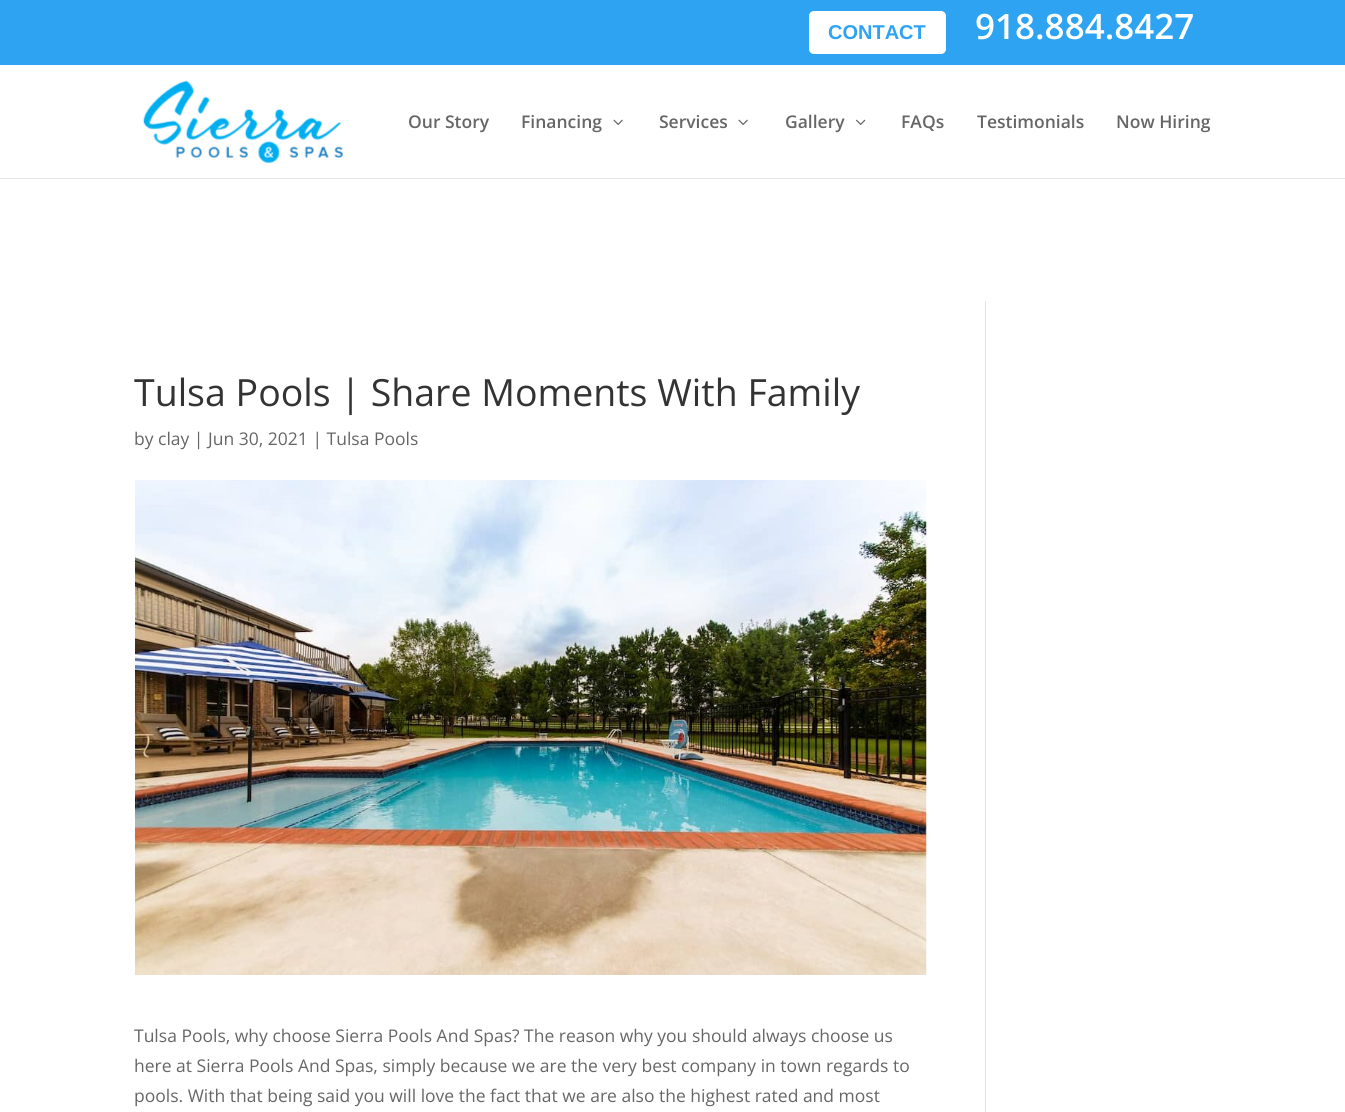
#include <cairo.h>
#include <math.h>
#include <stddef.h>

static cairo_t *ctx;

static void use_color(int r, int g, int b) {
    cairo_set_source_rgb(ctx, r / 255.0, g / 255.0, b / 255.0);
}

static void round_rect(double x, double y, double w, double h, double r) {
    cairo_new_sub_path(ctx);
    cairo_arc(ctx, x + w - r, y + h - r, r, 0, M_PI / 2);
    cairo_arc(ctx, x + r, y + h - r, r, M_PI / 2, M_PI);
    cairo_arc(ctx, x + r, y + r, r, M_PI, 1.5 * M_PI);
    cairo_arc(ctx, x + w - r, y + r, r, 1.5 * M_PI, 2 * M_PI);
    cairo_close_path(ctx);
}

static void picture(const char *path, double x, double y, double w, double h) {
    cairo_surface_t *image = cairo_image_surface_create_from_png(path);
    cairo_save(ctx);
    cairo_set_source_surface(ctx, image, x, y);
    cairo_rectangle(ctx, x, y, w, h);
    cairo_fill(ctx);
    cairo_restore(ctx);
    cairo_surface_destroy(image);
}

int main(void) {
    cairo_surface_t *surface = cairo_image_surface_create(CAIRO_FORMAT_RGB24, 1345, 1112);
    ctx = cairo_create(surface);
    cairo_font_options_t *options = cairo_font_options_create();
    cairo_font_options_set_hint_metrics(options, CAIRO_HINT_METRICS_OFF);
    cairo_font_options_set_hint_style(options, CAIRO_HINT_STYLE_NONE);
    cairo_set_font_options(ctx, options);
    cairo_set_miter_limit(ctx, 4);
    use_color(255, 255, 255);
    cairo_paint(ctx);
    use_color(230, 230, 230);
    cairo_rectangle(ctx, 0, 178, 1345, 1);
    cairo_fill(ctx);
    use_color(46, 163, 242);
    cairo_rectangle(ctx, 0, 0, 1345, 65);
    cairo_fill(ctx);
    use_color(255, 255, 255);
    round_rect(809, 11, 137, 43, 5);
    cairo_fill(ctx);
    cairo_select_font_face(ctx, "Liberation Sans", CAIRO_FONT_SLANT_NORMAL, CAIRO_FONT_WEIGHT_BOLD);
    cairo_set_font_size(ctx, 20);
    use_color(46, 163, 242);
    cairo_move_to(ctx, 828, 39);
    cairo_show_text(ctx, "CONTACT");
    cairo_select_font_face(ctx, "Open Sans SemiBold", CAIRO_FONT_SLANT_NORMAL, CAIRO_FONT_WEIGHT_NORMAL);
    cairo_set_font_size(ctx, 35);
    use_color(255, 255, 255);
    cairo_move_to(ctx, 975, 39);
    cairo_show_text(ctx, "918.884.8427");
    picture("img1.png", 143, 80, 200, 83);
    cairo_set_font_size(ctx, 17.5);
    use_color(102, 102, 102);
    cairo_move_to(ctx, 408, 128);
    cairo_show_text(ctx, "Our Story");
    cairo_move_to(ctx, 521, 128);
    cairo_show_text(ctx, "Financing");
    picture("img2.png", 613, 119, 10, 6);
    cairo_move_to(ctx, 659, 128);
    cairo_show_text(ctx, "Services");
    picture("img2.png", 738, 119, 10, 6);
    cairo_move_to(ctx, 785, 128);
    cairo_show_text(ctx, "Gallery");
    picture("img3.png", 856, 119, 10, 6);
    cairo_move_to(ctx, 901, 128);
    cairo_show_text(ctx, "FAQs");
    cairo_move_to(ctx, 977, 128);
    cairo_show_text(ctx, "Testimonials");
    cairo_move_to(ctx, 1116, 128);
    cairo_show_text(ctx, "Now Hiring");
    cairo_select_font_face(ctx, "Open Sans", CAIRO_FONT_SLANT_NORMAL, CAIRO_FONT_WEIGHT_NORMAL);
    cairo_set_font_size(ctx, 37.5);
    use_color(51, 51, 51);
    cairo_move_to(ctx, 134, 406);
    cairo_show_text(ctx, "Tulsa Pools | Share Moments With Family");
    cairo_set_font_size(ctx, 17.5);
    use_color(102, 102, 102);
    cairo_move_to(ctx, 134, 445);
    cairo_show_text(ctx, "by clay | Jun 30, 2021 | Tulsa Pools");
    picture("img4.png", 135, 480, 792, 495);
    cairo_move_to(ctx, 134, 1042);
    cairo_show_text(ctx, "Tulsa Pools, why choose Sierra Pools And Spas? The reason why you should always choose us");
    cairo_move_to(ctx, 134, 1072);
    cairo_show_text(ctx, "here at Sierra Pools And Spas, simply because we are the very best company in town regards to");
    cairo_move_to(ctx, 134, 1102);
    cairo_show_text(ctx, "pools. With that being said you will love the fact that we are also the highest rated and most");
    use_color(226, 226, 226);
    cairo_rectangle(ctx, 985, 301, 1, 811);
    cairo_fill(ctx);
    cairo_surface_write_to_png(surface, "result.png");
    cairo_font_options_destroy(options);
    cairo_destroy(ctx);
    cairo_surface_destroy(surface);
    return 0;
}
